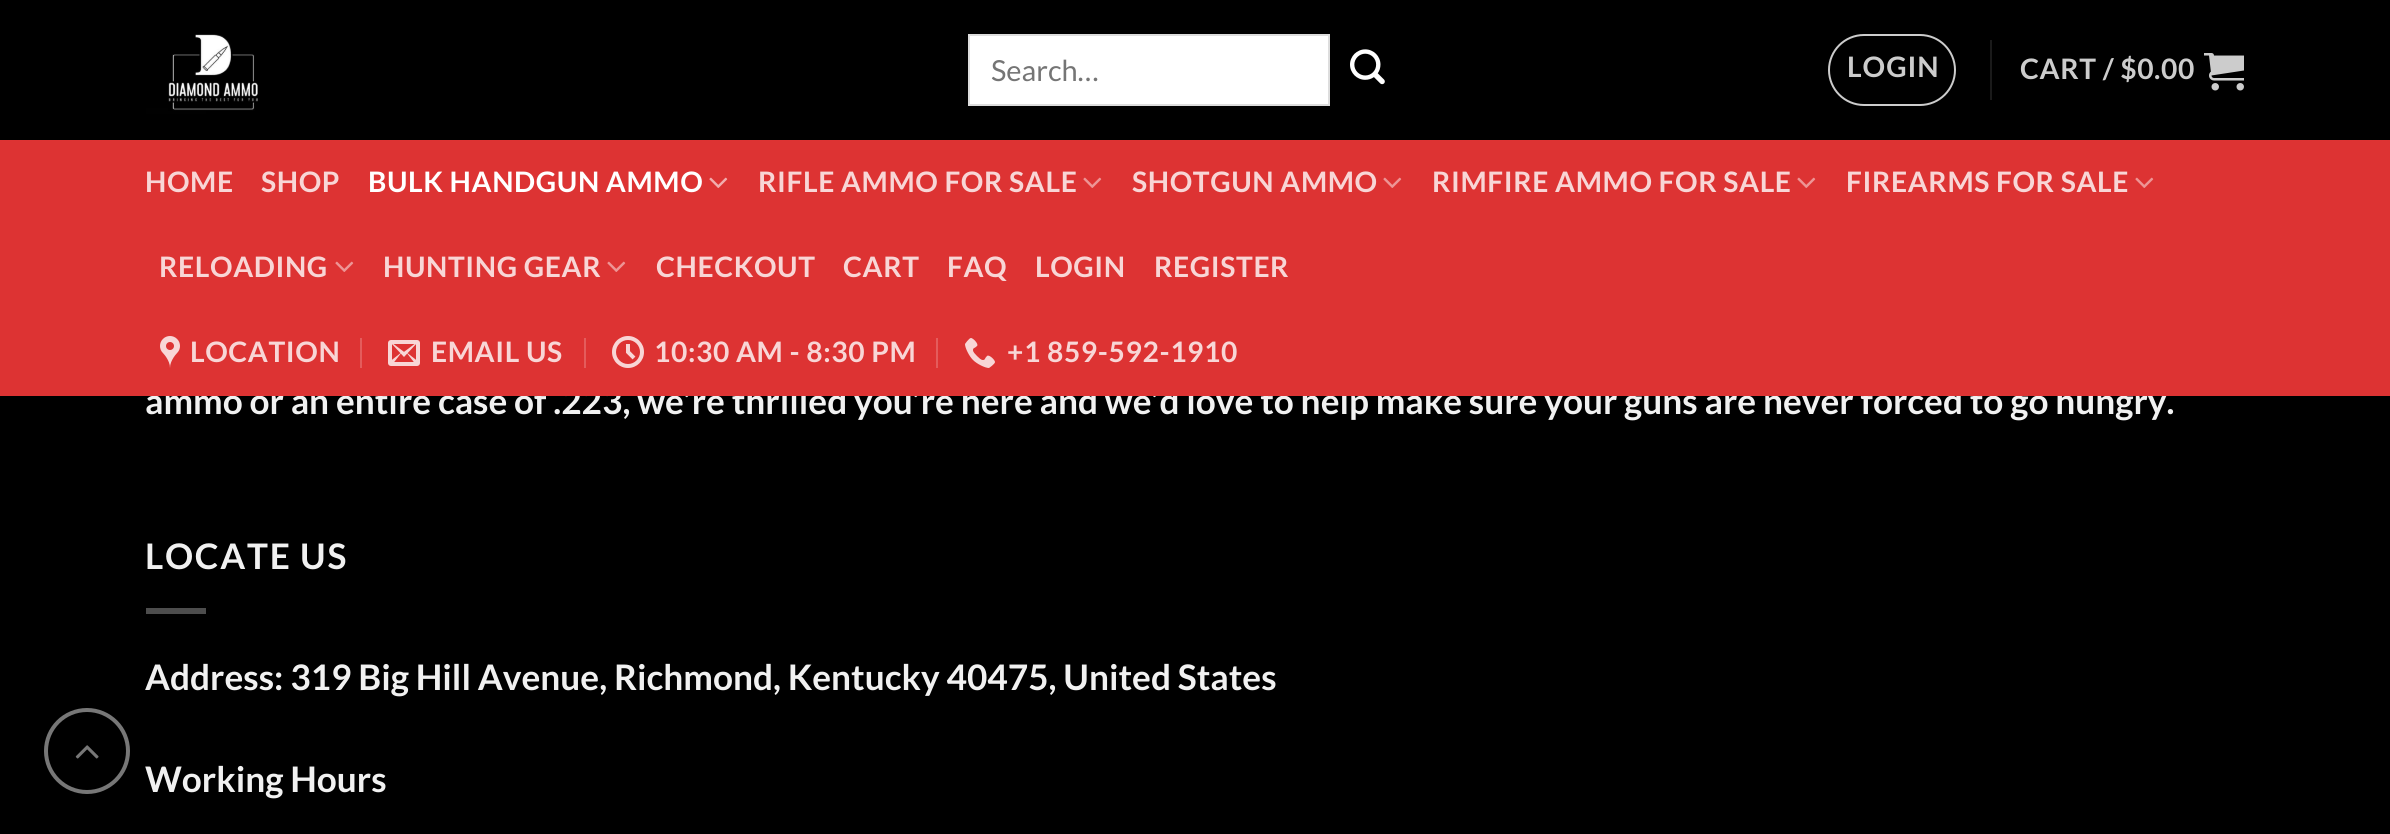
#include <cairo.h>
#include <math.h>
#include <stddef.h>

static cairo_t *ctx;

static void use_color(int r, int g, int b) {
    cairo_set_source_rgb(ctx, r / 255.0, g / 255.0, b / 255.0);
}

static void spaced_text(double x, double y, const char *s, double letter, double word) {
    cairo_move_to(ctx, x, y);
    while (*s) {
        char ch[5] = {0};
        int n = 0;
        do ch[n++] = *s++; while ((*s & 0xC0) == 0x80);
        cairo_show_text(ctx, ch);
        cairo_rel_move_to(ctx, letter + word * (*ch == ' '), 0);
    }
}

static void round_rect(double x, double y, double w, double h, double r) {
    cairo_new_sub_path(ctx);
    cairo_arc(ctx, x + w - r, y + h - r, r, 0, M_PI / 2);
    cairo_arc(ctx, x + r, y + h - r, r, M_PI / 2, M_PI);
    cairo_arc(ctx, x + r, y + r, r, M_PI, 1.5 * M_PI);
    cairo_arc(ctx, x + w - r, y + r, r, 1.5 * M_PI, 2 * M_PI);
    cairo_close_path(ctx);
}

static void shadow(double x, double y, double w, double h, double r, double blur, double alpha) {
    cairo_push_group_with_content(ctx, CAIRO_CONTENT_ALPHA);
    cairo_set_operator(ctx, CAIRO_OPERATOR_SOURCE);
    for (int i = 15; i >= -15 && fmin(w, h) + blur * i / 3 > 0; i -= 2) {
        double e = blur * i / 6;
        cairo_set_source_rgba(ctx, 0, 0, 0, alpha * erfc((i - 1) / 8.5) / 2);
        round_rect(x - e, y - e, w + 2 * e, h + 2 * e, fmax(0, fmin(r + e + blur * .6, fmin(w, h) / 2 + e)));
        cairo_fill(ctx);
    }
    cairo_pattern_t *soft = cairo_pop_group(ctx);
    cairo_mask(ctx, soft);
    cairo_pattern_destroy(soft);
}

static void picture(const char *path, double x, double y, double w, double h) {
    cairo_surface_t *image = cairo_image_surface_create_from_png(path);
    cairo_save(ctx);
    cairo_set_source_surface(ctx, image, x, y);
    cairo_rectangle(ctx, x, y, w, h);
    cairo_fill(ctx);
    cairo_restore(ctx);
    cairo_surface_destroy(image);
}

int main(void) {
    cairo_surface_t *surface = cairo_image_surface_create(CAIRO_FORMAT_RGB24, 2390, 834);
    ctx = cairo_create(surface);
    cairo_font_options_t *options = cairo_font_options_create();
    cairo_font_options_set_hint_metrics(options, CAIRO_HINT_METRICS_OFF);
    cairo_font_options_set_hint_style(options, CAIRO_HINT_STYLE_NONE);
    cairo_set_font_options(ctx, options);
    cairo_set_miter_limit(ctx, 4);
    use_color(0, 0, 0);
    cairo_paint(ctx);
    use_color(77, 77, 77);
    cairo_rectangle(ctx, 146, 108, 60, 6);
    cairo_fill(ctx);
    cairo_save(ctx);
    cairo_rectangle(ctx, 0, 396, 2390, 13);
    cairo_clip(ctx);
    use_color(0, 0, 0);
    shadow(2, 2, 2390, 396, 0, 10, 0.15);
    cairo_restore(ctx);
    cairo_set_source_rgba(ctx, 0, 0, 0, 0.9);
    cairo_rectangle(ctx, 146, 108, 60, 6);
    cairo_fill(ctx);
    cairo_rectangle(ctx, 146, 108, 60, 6);
    cairo_fill(ctx);
    picture("img1.png", 168, 34, 90, 77);
    use_color(255, 255, 255);
    cairo_rectangle(ctx, 969, 35, 360, 70);
    cairo_fill_preserve(ctx);
    use_color(221, 221, 221);
    cairo_stroke(ctx);
    cairo_select_font_face(ctx, "Lato", CAIRO_FONT_SLANT_NORMAL, CAIRO_FONT_WEIGHT_NORMAL);
    cairo_set_font_size(ctx, 29);
    use_color(117, 117, 117);
    cairo_move_to(ctx, 991, 81);
    cairo_show_text(ctx, "Search…");
    picture("img2.png", 1350, 49, 35, 36);
    round_rect(1829, 35, 126, 70, 35);
    use_color(204, 204, 204);
    cairo_stroke(ctx);
    cairo_select_font_face(ctx, "Lato", CAIRO_FONT_SLANT_NORMAL, CAIRO_FONT_WEIGHT_BOLD);
    cairo_set_font_size(ctx, 28.2);
    spaced_text(1847, 77, "LOGIN", 1, 0);
    use_color(26, 26, 26);
    cairo_rectangle(ctx, 1990, 40, 2, 60);
    cairo_fill(ctx);
    use_color(204, 204, 204);
    spaced_text(2020, 79, "CART / $0.00", 0.6, 0);
    picture("img3.png", 2204, 53, 40, 38);
    cairo_set_font_size(ctx, 35.2);
    use_color(241, 241, 241);
    cairo_move_to(ctx, 145, 414);
    cairo_show_text(ctx, "ammo or an entire case of .223, we’re thrilled you’re here and we’d love to help make sure your guns are never forced to go hungry.");
    use_color(221, 51, 51);
    cairo_rectangle(ctx, 0, 140, 2390, 256);
    cairo_fill(ctx);
    cairo_set_font_size(ctx, 28.2);
    use_color(248, 214, 214);
    spaced_text(145, 192, "HOME", 0.6, 0);
    spaced_text(261, 192, "SHOP", 0.6, 0);
    use_color(255, 255, 255);
    spaced_text(368, 192, "BULK HANDGUN AMMO", 0.6, 0);
    picture("img4.png", 709, 177, 19, 11);
    use_color(248, 214, 214);
    spaced_text(758, 192, "RIFLE AMMO FOR SALE", 0.6, 0);
    picture("img5.png", 1083, 177, 19, 11);
    spaced_text(1132, 192, "SHOTGUN AMMO", 0.6, 0);
    picture("img5.png", 1383, 177, 19, 11);
    spaced_text(1432, 192, "RIMFIRE AMMO FOR SALE", 0.6, 0);
    picture("img5.png", 1797, 177, 19, 11);
    spaced_text(1846, 192, "FIREARMS FOR SALE", 0.6, 0);
    picture("img5.png", 2135, 177, 19, 11);
    spaced_text(159, 277, "RELOADING", 0.6, 0);
    picture("img5.png", 335, 261, 19, 11);
    spaced_text(383, 277, "HUNTING GEAR", 0.6, 0);
    picture("img5.png", 607, 261, 19, 11);
    spaced_text(656, 277, "CHECKOUT", 0.6, 0);
    spaced_text(843, 277, "CART", 0.6, 0);
    spaced_text(947, 277, "FAQ", 0.6, 0);
    spaced_text(1035, 277, "LOGIN", 0.6, 0);
    spaced_text(1154, 277, "REGISTER", 0.6, 0);
    picture("img6.png", 160, 336, 20, 32);
    spaced_text(190, 362, "LOCATION", 0.6, 0);
    use_color(228, 92, 92);
    cairo_rectangle(ctx, 360, 338, 2, 30);
    cairo_fill(ctx);
    picture("img7.png", 388, 340, 32, 26);
    use_color(248, 214, 214);
    spaced_text(431, 362, "EMAIL US", 0.6, 0);
    use_color(228, 92, 92);
    cairo_rectangle(ctx, 584, 338, 2, 30);
    cairo_fill(ctx);
    picture("img8.png", 612, 336, 32, 32);
    use_color(248, 214, 214);
    spaced_text(654, 362, "10:30 AM - 8:30 PM", 0.6, 0);
    use_color(228, 92, 92);
    cairo_rectangle(ctx, 936, 338, 2, 30);
    cairo_fill(ctx);
    picture("img9.png", 965, 338, 30, 30);
    use_color(248, 214, 214);
    spaced_text(1007, 362, "+1 859-592-1910", 0.6, 0);
    cairo_new_path(ctx);
    cairo_arc(ctx, 87, 751, 41, 0, 2 * M_PI);
    use_color(119, 119, 119);
    cairo_set_line_width(ctx, 4);
    cairo_stroke(ctx);
    picture("img10.png", 75, 745, 24, 14);
    cairo_set_font_size(ctx, 35.2);
    use_color(241, 241, 241);
    spaced_text(145, 569, "LOCATE US", 1.75, 0);
    use_color(77, 77, 77);
    cairo_rectangle(ctx, 146, 608, 60, 6);
    cairo_fill(ctx);
    use_color(241, 241, 241);
    cairo_move_to(ctx, 145, 690);
    cairo_show_text(ctx, "Address: 319 Big Hill Avenue, Richmond, Kentucky 40475, United States");
    cairo_move_to(ctx, 145, 792);
    cairo_show_text(ctx, "Working Hours");
    cairo_surface_write_to_png(surface, "result.png");
    cairo_font_options_destroy(options);
    cairo_destroy(ctx);
    cairo_surface_destroy(surface);
    return 0;
}
